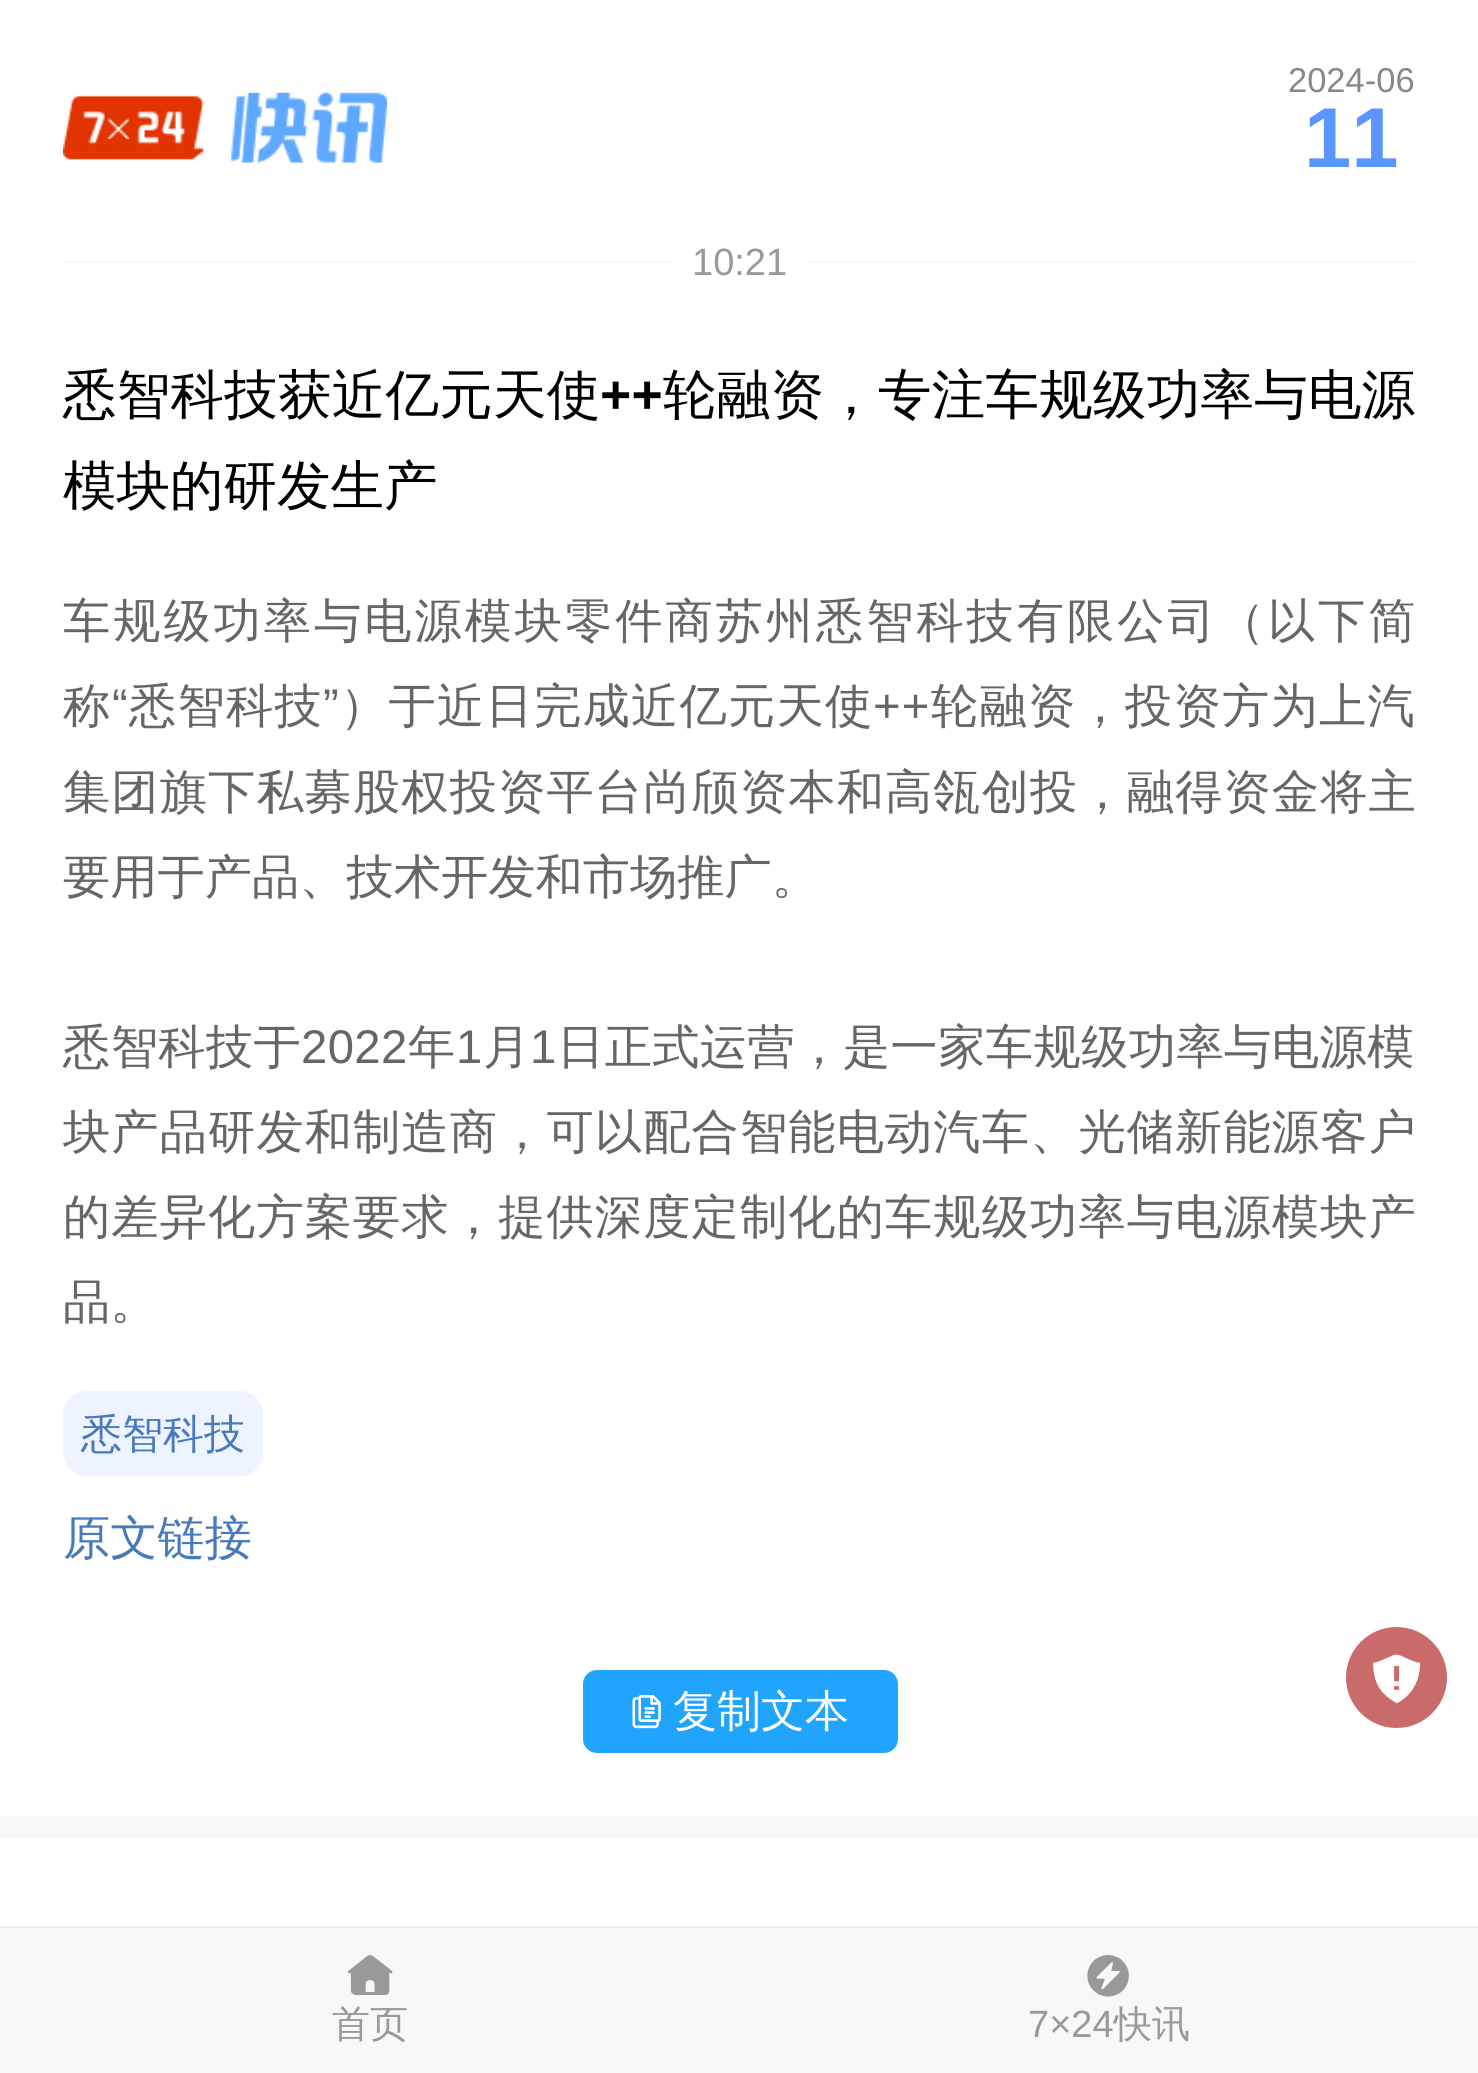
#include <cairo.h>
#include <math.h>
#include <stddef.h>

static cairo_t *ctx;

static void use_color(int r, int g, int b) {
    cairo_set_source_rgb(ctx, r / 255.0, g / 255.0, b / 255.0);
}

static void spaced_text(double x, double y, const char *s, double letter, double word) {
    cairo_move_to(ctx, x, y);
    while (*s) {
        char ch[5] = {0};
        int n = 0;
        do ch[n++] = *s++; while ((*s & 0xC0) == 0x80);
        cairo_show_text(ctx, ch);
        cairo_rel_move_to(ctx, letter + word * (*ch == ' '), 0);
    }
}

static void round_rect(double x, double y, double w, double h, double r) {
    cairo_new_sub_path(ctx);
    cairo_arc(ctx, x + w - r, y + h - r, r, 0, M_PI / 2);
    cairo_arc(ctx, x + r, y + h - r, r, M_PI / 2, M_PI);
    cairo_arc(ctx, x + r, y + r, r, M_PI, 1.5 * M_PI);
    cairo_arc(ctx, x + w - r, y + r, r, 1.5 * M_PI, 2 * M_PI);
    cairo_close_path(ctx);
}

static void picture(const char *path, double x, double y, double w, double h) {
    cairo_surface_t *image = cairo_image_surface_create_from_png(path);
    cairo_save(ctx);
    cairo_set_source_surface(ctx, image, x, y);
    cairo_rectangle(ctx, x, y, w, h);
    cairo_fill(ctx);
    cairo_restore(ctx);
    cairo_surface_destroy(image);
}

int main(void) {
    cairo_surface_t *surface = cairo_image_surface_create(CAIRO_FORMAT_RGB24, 1478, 2073);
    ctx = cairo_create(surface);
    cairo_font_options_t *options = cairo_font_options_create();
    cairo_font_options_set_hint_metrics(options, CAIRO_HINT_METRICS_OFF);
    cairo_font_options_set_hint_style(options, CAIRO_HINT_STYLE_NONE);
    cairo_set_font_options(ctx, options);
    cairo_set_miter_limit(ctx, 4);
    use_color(255, 255, 255);
    cairo_paint(ctx);
    picture("img1.png", 63, 92, 324, 71);
    cairo_select_font_face(ctx, "Liberation Sans", CAIRO_FONT_SLANT_NORMAL, CAIRO_FONT_WEIGHT_NORMAL);
    cairo_set_font_size(ctx, 34.5);
    use_color(136, 136, 136);
    cairo_move_to(ctx, 1288, 92);
    cairo_show_text(ctx, "2024-06");
    cairo_select_font_face(ctx, "Liberation Sans", CAIRO_FONT_SLANT_NORMAL, CAIRO_FONT_WEIGHT_BOLD);
    cairo_set_font_size(ctx, 85);
    use_color(90, 150, 254);
    cairo_move_to(ctx, 1304, 167);
    cairo_show_text(ctx, "11");
    use_color(248, 248, 248);
    cairo_rectangle(ctx, 63, 261, 1352, 2);
    cairo_fill(ctx);
    use_color(255, 255, 255);
    cairo_rectangle(ctx, 671, 261, 139, 2);
    cairo_fill(ctx);
    cairo_select_font_face(ctx, "Liberation Sans", CAIRO_FONT_SLANT_NORMAL, CAIRO_FONT_WEIGHT_NORMAL);
    cairo_set_font_size(ctx, 38);
    use_color(153, 153, 153);
    cairo_move_to(ctx, 692, 275);
    cairo_show_text(ctx, "10:21");
    cairo_select_font_face(ctx, "WenQuanYi Zen Hei Medium", CAIRO_FONT_SLANT_NORMAL, CAIRO_FONT_WEIGHT_NORMAL);
    cairo_set_font_size(ctx, 53.5);
    use_color(0, 0, 0);
    spaced_text(63, 413, "悉智科技获近亿元天使", 0.25, 0);
    cairo_select_font_face(ctx, "Liberation Sans", CAIRO_FONT_SLANT_NORMAL, CAIRO_FONT_WEIGHT_BOLD);
    spaced_text(600, 413, "++", 0.25, 0);
    cairo_select_font_face(ctx, "WenQuanYi Zen Hei Medium", CAIRO_FONT_SLANT_NORMAL, CAIRO_FONT_WEIGHT_NORMAL);
    spaced_text(663, 413, "轮融资，专注车规级功率与电源", 0.25, 0);
    cairo_move_to(ctx, 63, 504);
    cairo_show_text(ctx, "模块的研发生产");
    cairo_set_font_size(ctx, 47.25);
    use_color(102, 102, 102);
    spaced_text(63, 637, "车规级功率与电源模块零件商苏州悉智科技有限公司（以下简", 2.95, 0);
    spaced_text(63, 722, "称", 1.25, 0);
    cairo_select_font_face(ctx, "Liberation Sans", CAIRO_FONT_SLANT_NORMAL, CAIRO_FONT_WEIGHT_NORMAL);
    spaced_text(112, 722, "“", 1.25, 0);
    cairo_select_font_face(ctx, "WenQuanYi Zen Hei Medium", CAIRO_FONT_SLANT_NORMAL, CAIRO_FONT_WEIGHT_NORMAL);
    spaced_text(129, 722, "悉智科技", 1.25, 0);
    cairo_select_font_face(ctx, "Liberation Sans", CAIRO_FONT_SLANT_NORMAL, CAIRO_FONT_WEIGHT_NORMAL);
    spaced_text(323, 722, "”", 1.25, 0);
    cairo_select_font_face(ctx, "WenQuanYi Zen Hei Medium", CAIRO_FONT_SLANT_NORMAL, CAIRO_FONT_WEIGHT_NORMAL);
    spaced_text(340, 722, "）于近日完成近亿元天使", 1.25, 0);
    cairo_select_font_face(ctx, "Liberation Sans", CAIRO_FONT_SLANT_NORMAL, CAIRO_FONT_WEIGHT_NORMAL);
    spaced_text(873, 722, "++", 1.25, 0);
    cairo_select_font_face(ctx, "WenQuanYi Zen Hei Medium", CAIRO_FONT_SLANT_NORMAL, CAIRO_FONT_WEIGHT_NORMAL);
    spaced_text(931, 722, "轮融资，投资方为上汽", 1.25, 0);
    spaced_text(63, 808, "集团旗下私募股权投资平台尚颀资本和高瓴创投，融得资金将主", 1.1, 0);
    cairo_move_to(ctx, 63, 893);
    cairo_show_text(ctx, "要用于产品、技术开发和市场推广。");
    spaced_text(63, 1063, "悉智科技于", 0.4, 0);
    cairo_select_font_face(ctx, "Liberation Sans", CAIRO_FONT_SLANT_NORMAL, CAIRO_FONT_WEIGHT_NORMAL);
    spaced_text(301, 1063, "2022", 0.4, 0);
    cairo_select_font_face(ctx, "WenQuanYi Zen Hei Medium", CAIRO_FONT_SLANT_NORMAL, CAIRO_FONT_WEIGHT_NORMAL);
    spaced_text(408, 1063, "年", 0.4, 0);
    cairo_select_font_face(ctx, "Liberation Sans", CAIRO_FONT_SLANT_NORMAL, CAIRO_FONT_WEIGHT_NORMAL);
    spaced_text(456, 1063, "1", 0.4, 0);
    cairo_select_font_face(ctx, "WenQuanYi Zen Hei Medium", CAIRO_FONT_SLANT_NORMAL, CAIRO_FONT_WEIGHT_NORMAL);
    spaced_text(483, 1063, "月", 0.4, 0);
    cairo_select_font_face(ctx, "Liberation Sans", CAIRO_FONT_SLANT_NORMAL, CAIRO_FONT_WEIGHT_NORMAL);
    spaced_text(530, 1063, "1", 0.4, 0);
    cairo_select_font_face(ctx, "WenQuanYi Zen Hei Medium", CAIRO_FONT_SLANT_NORMAL, CAIRO_FONT_WEIGHT_NORMAL);
    spaced_text(557, 1063, "日正式运营，是一家车规级功率与电源模", 0.4, 0);
    spaced_text(63, 1148, "块产品研发和制造商，可以配合智能电动汽车、光储新能源客户", 1.1, 0);
    spaced_text(63, 1233, "的差异化方案要求，提供深度定制化的车规级功率与电源模块产", 1.1, 0);
    cairo_move_to(ctx, 63, 1318);
    cairo_show_text(ctx, "品。");
    use_color(237, 243, 255);
    round_rect(63, 1391, 200, 85, 23);
    cairo_fill(ctx);
    cairo_set_font_size(ctx, 41);
    use_color(70, 121, 189);
    cairo_move_to(ctx, 81, 1448);
    cairo_show_text(ctx, "悉智科技");
    cairo_set_font_size(ctx, 47.25);
    cairo_move_to(ctx, 63, 1554);
    cairo_show_text(ctx, "原文链接");
    use_color(33, 164, 253);
    round_rect(583, 1670, 315, 83, 14);
    cairo_fill(ctx);
    picture("img2.png", 632, 1695, 29, 34);
    cairo_set_font_size(ctx, 44);
    use_color(255, 255, 255);
    cairo_move_to(ctx, 673, 1726);
    cairo_show_text(ctx, "复制文本");
    use_color(248, 248, 248);
    cairo_rectangle(ctx, 0, 1816, 1478, 22);
    cairo_fill(ctx);
    use_color(202, 107, 107);
    cairo_arc(ctx, 1396.5, 1677.5, 50.5, 0, 2 * M_PI);
    cairo_fill(ctx);
    picture("img3.png", 1373, 1654, 47, 50);
    use_color(238, 238, 238);
    cairo_rectangle(ctx, 0, 1926, 1478, 2);
    cairo_fill(ctx);
    use_color(248, 248, 248);
    cairo_rectangle(ctx, 0, 1928, 1478, 145);
    cairo_fill(ctx);
    picture("img4.png", 348, 1955, 45, 40);
    cairo_set_font_size(ctx, 38);
    use_color(153, 153, 153);
    cairo_move_to(ctx, 332, 2037);
    cairo_show_text(ctx, "首页");
    picture("img5.png", 1087, 1955, 42, 42);
    cairo_select_font_face(ctx, "Liberation Sans", CAIRO_FONT_SLANT_NORMAL, CAIRO_FONT_WEIGHT_NORMAL);
    cairo_move_to(ctx, 1028, 2037);
    cairo_show_text(ctx, "7×24");
    cairo_select_font_face(ctx, "WenQuanYi Zen Hei Medium", CAIRO_FONT_SLANT_NORMAL, CAIRO_FONT_WEIGHT_NORMAL);
    cairo_move_to(ctx, 1114, 2037);
    cairo_show_text(ctx, "快讯");
    cairo_surface_write_to_png(surface, "result.png");
    cairo_font_options_destroy(options);
    cairo_destroy(ctx);
    cairo_surface_destroy(surface);
    return 0;
}
